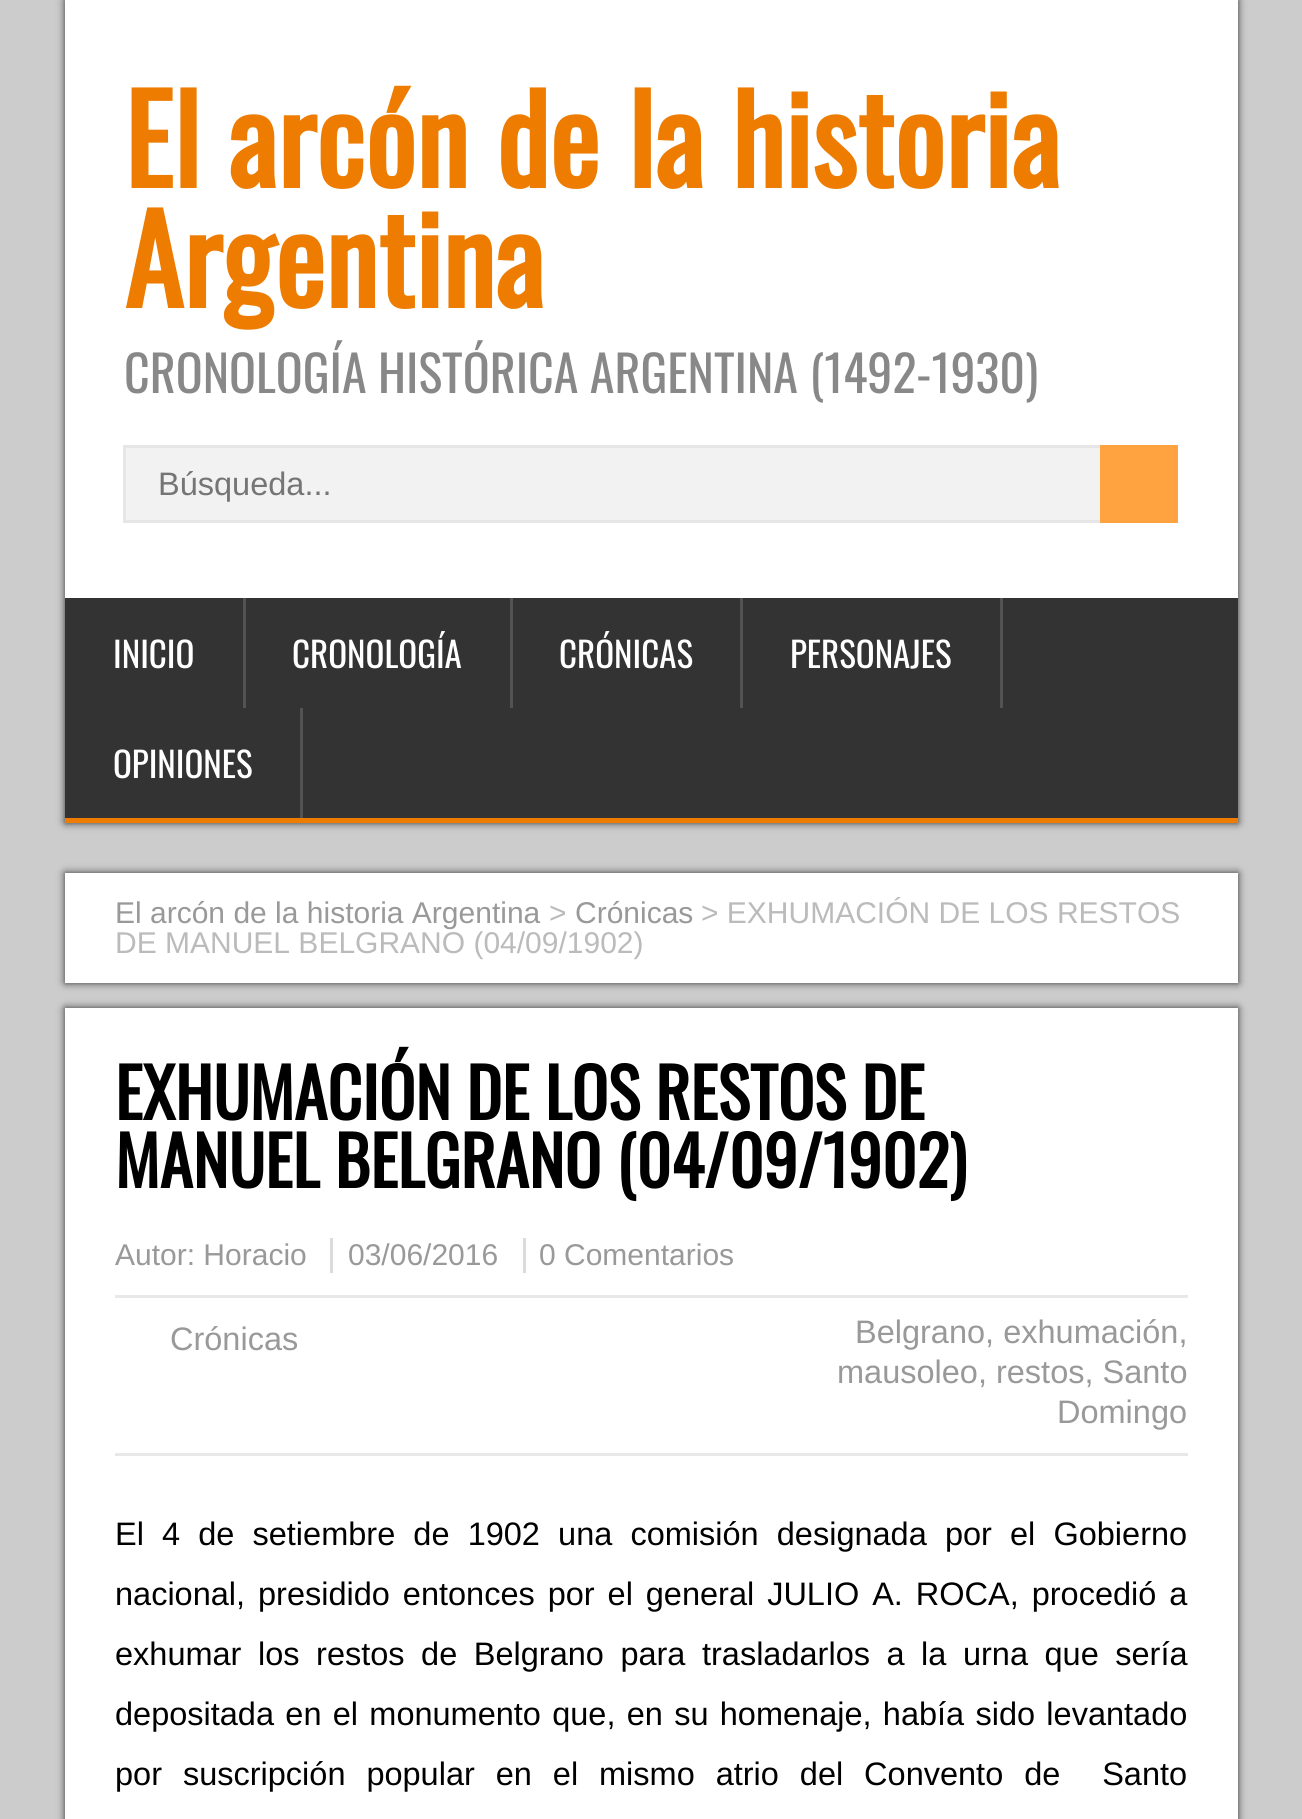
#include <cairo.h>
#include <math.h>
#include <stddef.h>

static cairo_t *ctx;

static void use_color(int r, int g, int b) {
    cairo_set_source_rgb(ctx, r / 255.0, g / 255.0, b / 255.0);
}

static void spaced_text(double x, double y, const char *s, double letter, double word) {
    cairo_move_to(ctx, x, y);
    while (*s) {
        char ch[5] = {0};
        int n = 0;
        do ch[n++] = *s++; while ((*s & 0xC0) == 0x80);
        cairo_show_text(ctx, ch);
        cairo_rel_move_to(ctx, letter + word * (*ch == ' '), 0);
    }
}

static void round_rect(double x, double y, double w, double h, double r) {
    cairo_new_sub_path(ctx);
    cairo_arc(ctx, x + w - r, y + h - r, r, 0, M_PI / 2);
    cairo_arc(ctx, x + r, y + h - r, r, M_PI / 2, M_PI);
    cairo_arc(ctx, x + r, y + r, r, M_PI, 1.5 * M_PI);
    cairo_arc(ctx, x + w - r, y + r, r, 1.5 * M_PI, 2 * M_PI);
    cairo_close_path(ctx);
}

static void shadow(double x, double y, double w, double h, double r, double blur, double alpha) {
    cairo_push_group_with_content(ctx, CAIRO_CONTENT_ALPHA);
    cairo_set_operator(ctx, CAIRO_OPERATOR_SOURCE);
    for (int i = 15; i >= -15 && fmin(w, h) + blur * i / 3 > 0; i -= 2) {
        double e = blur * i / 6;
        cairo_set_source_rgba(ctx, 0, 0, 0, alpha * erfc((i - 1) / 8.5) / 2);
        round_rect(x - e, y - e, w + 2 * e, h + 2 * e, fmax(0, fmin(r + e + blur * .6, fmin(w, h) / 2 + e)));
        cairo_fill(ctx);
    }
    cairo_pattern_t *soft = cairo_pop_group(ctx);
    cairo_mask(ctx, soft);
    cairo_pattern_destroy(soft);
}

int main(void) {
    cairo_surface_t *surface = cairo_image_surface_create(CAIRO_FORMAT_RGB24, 1302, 1819);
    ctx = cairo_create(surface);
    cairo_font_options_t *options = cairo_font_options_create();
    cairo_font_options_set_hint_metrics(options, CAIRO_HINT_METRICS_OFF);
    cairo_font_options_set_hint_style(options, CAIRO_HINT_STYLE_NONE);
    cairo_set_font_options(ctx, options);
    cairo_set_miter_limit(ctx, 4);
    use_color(204, 204, 204);
    cairo_paint(ctx);
    use_color(51, 51, 51);
    shadow(65, 0, 1173, 823, 0, 4, 1);
    use_color(255, 255, 255);
    cairo_rectangle(ctx, 65, 0, 1173, 598);
    cairo_fill(ctx);
    cairo_select_font_face(ctx, "Oswald", CAIRO_FONT_SLANT_NORMAL, CAIRO_FONT_WEIGHT_BOLD);
    cairo_set_font_size(ctx, 120);
    use_color(237, 124, 0);
    cairo_move_to(ctx, 124, 188);
    cairo_show_text(ctx, "El arcón de la historia");
    cairo_move_to(ctx, 124, 308);
    cairo_show_text(ctx, "Argentina");
    cairo_select_font_face(ctx, "Oswald", CAIRO_FONT_SLANT_NORMAL, CAIRO_FONT_WEIGHT_NORMAL);
    cairo_set_font_size(ctx, 50);
    use_color(136, 136, 136);
    cairo_move_to(ctx, 124, 393);
    cairo_show_text(ctx, "CRONOLOGÍA HISTÓRICA ARGENTINA (1492-1930)");
    use_color(242, 242, 242);
    cairo_rectangle(ctx, 126, 448, 974, 72);
    cairo_fill(ctx);
    cairo_rectangle(ctx, 124.5, 446.5, 1047, 75);
    use_color(230, 230, 230);
    cairo_set_line_width(ctx, 3);
    cairo_stroke(ctx);
    cairo_select_font_face(ctx, "Liberation Sans", CAIRO_FONT_SLANT_NORMAL, CAIRO_FONT_WEIGHT_NORMAL);
    cairo_set_font_size(ctx, 32.5);
    use_color(117, 117, 117);
    cairo_move_to(ctx, 158, 495);
    cairo_show_text(ctx, "Búsqueda...");
    use_color(255, 163, 64);
    cairo_rectangle(ctx, 1100, 445, 78, 78);
    cairo_fill(ctx);
    use_color(51, 51, 51);
    cairo_rectangle(ctx, 65, 598, 1173, 220);
    cairo_fill(ctx);
    use_color(237, 124, 0);
    cairo_rectangle(ctx, 65, 818, 1173, 5);
    cairo_fill(ctx);
    use_color(83, 83, 83);
    cairo_rectangle(ctx, 243, 598, 3, 110);
    cairo_fill(ctx);
    cairo_select_font_face(ctx, "Oswald", CAIRO_FONT_SLANT_NORMAL, CAIRO_FONT_WEIGHT_NORMAL);
    cairo_set_font_size(ctx, 35);
    use_color(255, 255, 255);
    cairo_move_to(ctx, 113, 668);
    cairo_show_text(ctx, "INICIO");
    use_color(83, 83, 83);
    cairo_rectangle(ctx, 510, 598, 3, 110);
    cairo_fill(ctx);
    use_color(255, 255, 255);
    cairo_move_to(ctx, 292, 668);
    cairo_show_text(ctx, "CRONOLOGÍA");
    use_color(83, 83, 83);
    cairo_rectangle(ctx, 740, 598, 3, 110);
    cairo_fill(ctx);
    use_color(255, 255, 255);
    cairo_move_to(ctx, 559, 668);
    cairo_show_text(ctx, "CRÓNICAS");
    use_color(83, 83, 83);
    cairo_rectangle(ctx, 1000, 598, 3, 110);
    cairo_fill(ctx);
    use_color(255, 255, 255);
    cairo_move_to(ctx, 790, 668);
    cairo_show_text(ctx, "PERSONAJES");
    use_color(83, 83, 83);
    cairo_rectangle(ctx, 300, 708, 3, 110);
    cairo_fill(ctx);
    use_color(255, 255, 255);
    cairo_move_to(ctx, 113, 778);
    cairo_show_text(ctx, "OPINIONES");
    use_color(51, 51, 51);
    shadow(65, 873, 1173, 110, 0, 4, 1);
    use_color(255, 255, 255);
    cairo_rectangle(ctx, 65, 873, 1173, 110);
    cairo_fill(ctx);
    cairo_select_font_face(ctx, "Liberation Sans", CAIRO_FONT_SLANT_NORMAL, CAIRO_FONT_WEIGHT_NORMAL);
    cairo_set_font_size(ctx, 30);
    use_color(153, 153, 153);
    cairo_move_to(ctx, 115, 923);
    cairo_show_text(ctx, "El arcón de la historia Argentina");
    use_color(187, 187, 187);
    cairo_move_to(ctx, 549, 923);
    cairo_show_text(ctx, ">");
    use_color(153, 153, 153);
    cairo_move_to(ctx, 575, 923);
    cairo_show_text(ctx, "Crónicas");
    use_color(187, 187, 187);
    cairo_move_to(ctx, 701, 923);
    cairo_show_text(ctx, "> EXHUMACIÓN DE LOS RESTOS");
    cairo_move_to(ctx, 115, 953);
    cairo_show_text(ctx, "DE MANUEL BELGRANO (04/09/1902)");
    use_color(51, 51, 51);
    shadow(65, 1008, 1173, 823, 0, 4, 1);
    use_color(255, 255, 255);
    cairo_rectangle(ctx, 65, 1008, 1173, 811);
    cairo_fill(ctx);
    cairo_select_font_face(ctx, "Oswald", CAIRO_FONT_SLANT_NORMAL, CAIRO_FONT_WEIGHT_BOLD);
    cairo_set_font_size(ctx, 67.5);
    use_color(0, 0, 0);
    cairo_move_to(ctx, 115, 1120);
    cairo_show_text(ctx, "EXHUMACIÓN DE LOS RESTOS DE");
    cairo_move_to(ctx, 115, 1188);
    cairo_show_text(ctx, "MANUEL BELGRANO (04/09/1902)");
    cairo_select_font_face(ctx, "Liberation Sans", CAIRO_FONT_SLANT_NORMAL, CAIRO_FONT_WEIGHT_NORMAL);
    cairo_set_font_size(ctx, 30);
    use_color(153, 153, 153);
    cairo_move_to(ctx, 115, 1265);
    cairo_show_text(ctx, "Autor: Horacio");
    cairo_move_to(ctx, 348, 1265);
    cairo_show_text(ctx, "03/06/2016");
    use_color(219, 219, 219);
    cairo_rectangle(ctx, 330, 1238, 3, 35);
    cairo_fill(ctx);
    use_color(153, 153, 153);
    cairo_move_to(ctx, 539, 1265);
    cairo_show_text(ctx, "0 Comentarios");
    use_color(219, 219, 219);
    cairo_rectangle(ctx, 523, 1238, 3, 35);
    cairo_fill(ctx);
    use_color(232, 232, 232);
    cairo_rectangle(ctx, 115, 1295, 1073, 3);
    cairo_fill(ctx);
    cairo_rectangle(ctx, 115, 1453, 1073, 3);
    cairo_fill(ctx);
    cairo_set_font_size(ctx, 32.5);
    use_color(153, 153, 153);
    cairo_move_to(ctx, 170, 1350);
    cairo_show_text(ctx, "Crónicas");
    cairo_move_to(ctx, 855, 1343);
    cairo_show_text(ctx, "Belgrano, exhumación,");
    cairo_move_to(ctx, 837, 1383);
    cairo_show_text(ctx, "mausoleo, restos, Santo");
    cairo_move_to(ctx, 1057, 1423);
    cairo_show_text(ctx, "Domingo");
    use_color(0, 0, 0);
    spaced_text(115, 1545, "El 4 de setiembre de 1902 una comisión designada por el Gobierno", 0, 9.1);
    spaced_text(115, 1605, "nacional, presidido entonces por el general JULIO A. ROCA, procedió a", 0, 3.9);
    spaced_text(115, 1665, "exhumar los restos de Belgrano para trasladarlos a la urna que sería", 0, 7.5);
    spaced_text(115, 1725, "depositada en el monumento que, en su homenaje, había sido levantado", 0, 2.25);
    spaced_text(115, 1785, "por suscripción popular en el mismo atrio del Convento de  Santo", 0, 11.9);
    cairo_surface_write_to_png(surface, "result.png");
    cairo_font_options_destroy(options);
    cairo_destroy(ctx);
    cairo_surface_destroy(surface);
    return 0;
}
